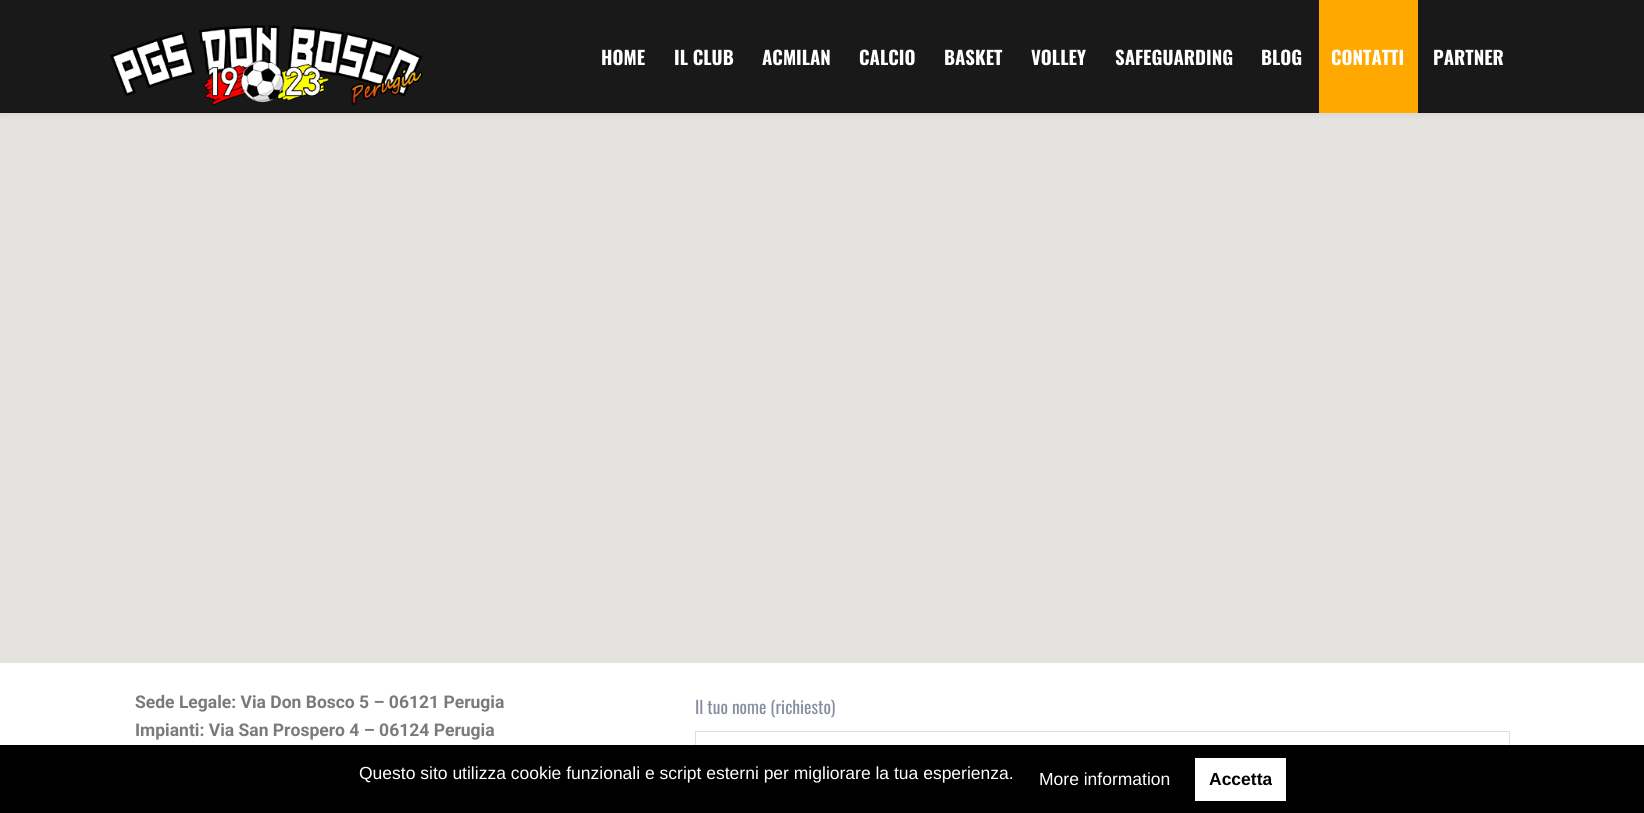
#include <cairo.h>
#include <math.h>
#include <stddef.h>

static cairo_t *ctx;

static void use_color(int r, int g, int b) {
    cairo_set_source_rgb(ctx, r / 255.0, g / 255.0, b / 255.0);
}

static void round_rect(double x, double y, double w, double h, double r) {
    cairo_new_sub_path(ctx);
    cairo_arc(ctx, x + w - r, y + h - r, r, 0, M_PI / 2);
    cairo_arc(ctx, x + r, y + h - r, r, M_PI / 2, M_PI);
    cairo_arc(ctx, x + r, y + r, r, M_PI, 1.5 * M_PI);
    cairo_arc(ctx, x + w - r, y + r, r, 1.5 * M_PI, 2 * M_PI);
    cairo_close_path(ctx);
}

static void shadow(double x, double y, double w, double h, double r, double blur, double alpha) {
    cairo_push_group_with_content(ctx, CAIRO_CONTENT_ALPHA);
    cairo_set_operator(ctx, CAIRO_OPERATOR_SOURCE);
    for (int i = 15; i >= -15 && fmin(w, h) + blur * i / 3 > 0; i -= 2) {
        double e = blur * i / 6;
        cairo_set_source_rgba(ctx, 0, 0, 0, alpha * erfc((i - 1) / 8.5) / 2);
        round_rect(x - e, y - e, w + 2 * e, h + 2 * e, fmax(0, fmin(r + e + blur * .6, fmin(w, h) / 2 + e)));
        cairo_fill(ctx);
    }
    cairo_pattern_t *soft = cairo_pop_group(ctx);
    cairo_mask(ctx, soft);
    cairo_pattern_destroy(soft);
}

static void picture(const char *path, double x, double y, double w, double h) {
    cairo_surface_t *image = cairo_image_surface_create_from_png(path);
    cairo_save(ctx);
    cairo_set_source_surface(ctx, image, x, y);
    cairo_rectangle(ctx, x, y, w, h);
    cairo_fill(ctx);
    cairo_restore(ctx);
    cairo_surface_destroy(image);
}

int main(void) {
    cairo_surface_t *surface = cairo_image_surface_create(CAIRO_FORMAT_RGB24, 1644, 813);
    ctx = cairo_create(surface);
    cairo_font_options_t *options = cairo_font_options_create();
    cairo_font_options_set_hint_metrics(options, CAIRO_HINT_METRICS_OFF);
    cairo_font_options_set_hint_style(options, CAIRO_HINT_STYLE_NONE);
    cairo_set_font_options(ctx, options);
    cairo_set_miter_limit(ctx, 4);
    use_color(255, 255, 255);
    cairo_paint(ctx);
    use_color(229, 227, 223);
    cairo_rectangle(ctx, 0, 112, 1644, 551);
    cairo_fill(ctx);
    cairo_save(ctx);
    cairo_set_fill_rule(ctx, CAIRO_FILL_RULE_EVEN_ODD);
    cairo_new_path(ctx);
    cairo_move_to(ctx, 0, 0);
    cairo_line_to(ctx, 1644, 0);
    cairo_line_to(ctx, 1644, 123);
    cairo_line_to(ctx, 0, 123);
    cairo_close_path(ctx);
    cairo_move_to(ctx, 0, 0);
    cairo_line_to(ctx, 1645, 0);
    cairo_line_to(ctx, 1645, 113);
    cairo_line_to(ctx, 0, 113);
    cairo_close_path(ctx);
    cairo_clip(ctx);
    use_color(0, 0, 0);
    shadow(0, 4, 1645, 112, 0, 2, 0.05);
    cairo_restore(ctx);
    cairo_set_source_rgba(ctx, 0, 0, 0, 0.9);
    cairo_rectangle(ctx, 0, 0, 1644, 113);
    cairo_fill(ctx);
    picture("img1.png", 110, 25, 313, 80);
    cairo_select_font_face(ctx, "Oswald", CAIRO_FONT_SLANT_NORMAL, CAIRO_FONT_WEIGHT_BOLD);
    cairo_set_font_size(ctx, 18.75);
    use_color(255, 255, 255);
    cairo_move_to(ctx, 601, 65);
    cairo_show_text(ctx, "HOME");
    cairo_move_to(ctx, 674, 65);
    cairo_show_text(ctx, "IL CLUB");
    cairo_move_to(ctx, 762, 65);
    cairo_show_text(ctx, "ACMILAN");
    cairo_move_to(ctx, 859, 65);
    cairo_show_text(ctx, "CALCIO");
    cairo_move_to(ctx, 944, 65);
    cairo_show_text(ctx, "BASKET");
    cairo_move_to(ctx, 1031, 65);
    cairo_show_text(ctx, "VOLLEY");
    cairo_move_to(ctx, 1115, 65);
    cairo_show_text(ctx, "SAFEGUARDING");
    cairo_move_to(ctx, 1261, 65);
    cairo_show_text(ctx, "BLOG");
    use_color(255, 168, 0);
    cairo_rectangle(ctx, 1319, 0, 99, 113);
    cairo_fill(ctx);
    use_color(255, 255, 255);
    cairo_move_to(ctx, 1331, 65);
    cairo_show_text(ctx, "CONTATTI");
    cairo_move_to(ctx, 1433, 65);
    cairo_show_text(ctx, "PARTNER");
    cairo_select_font_face(ctx, "Roboto", CAIRO_FONT_SLANT_NORMAL, CAIRO_FONT_WEIGHT_BOLD);
    cairo_set_font_size(ctx, 17.5);
    use_color(122, 122, 122);
    cairo_move_to(ctx, 135, 708);
    cairo_show_text(ctx, "Sede Legale: Via Don Bosco 5 – 06121 Perugia");
    cairo_move_to(ctx, 135, 736);
    cairo_show_text(ctx, "Impianti: Via San Prospero 4 – 06124 Perugia");
    cairo_select_font_face(ctx, "Oswald", CAIRO_FONT_SLANT_NORMAL, CAIRO_FONT_WEIGHT_NORMAL);
    use_color(135, 140, 159);
    cairo_move_to(ctx, 695, 714);
    cairo_show_text(ctx, "Il tuo nome (richiesto)");
    cairo_rectangle(ctx, 695.5, 731.5, 814, 63);
    use_color(221, 221, 221);
    cairo_set_line_width(ctx, 1);
    cairo_stroke(ctx);
    use_color(0, 0, 0);
    cairo_rectangle(ctx, 0, 745, 1644, 68);
    cairo_fill(ctx);
    cairo_select_font_face(ctx, "Liberation Sans", CAIRO_FONT_SLANT_NORMAL, CAIRO_FONT_WEIGHT_NORMAL);
    use_color(255, 255, 255);
    cairo_move_to(ctx, 359, 779);
    cairo_show_text(ctx, "Questo sito utilizza cookie funzionali e script esterni per migliorare la tua esperienza.");
    cairo_move_to(ctx, 1039, 785);
    cairo_show_text(ctx, "More information");
    cairo_rectangle(ctx, 1195, 758, 91, 43);
    cairo_fill(ctx);
    cairo_select_font_face(ctx, "Liberation Sans", CAIRO_FONT_SLANT_NORMAL, CAIRO_FONT_WEIGHT_BOLD);
    use_color(0, 0, 0);
    cairo_move_to(ctx, 1209, 785);
    cairo_show_text(ctx, "Accetta");
    cairo_surface_write_to_png(surface, "result.png");
    cairo_font_options_destroy(options);
    cairo_destroy(ctx);
    cairo_surface_destroy(surface);
    return 0;
}
